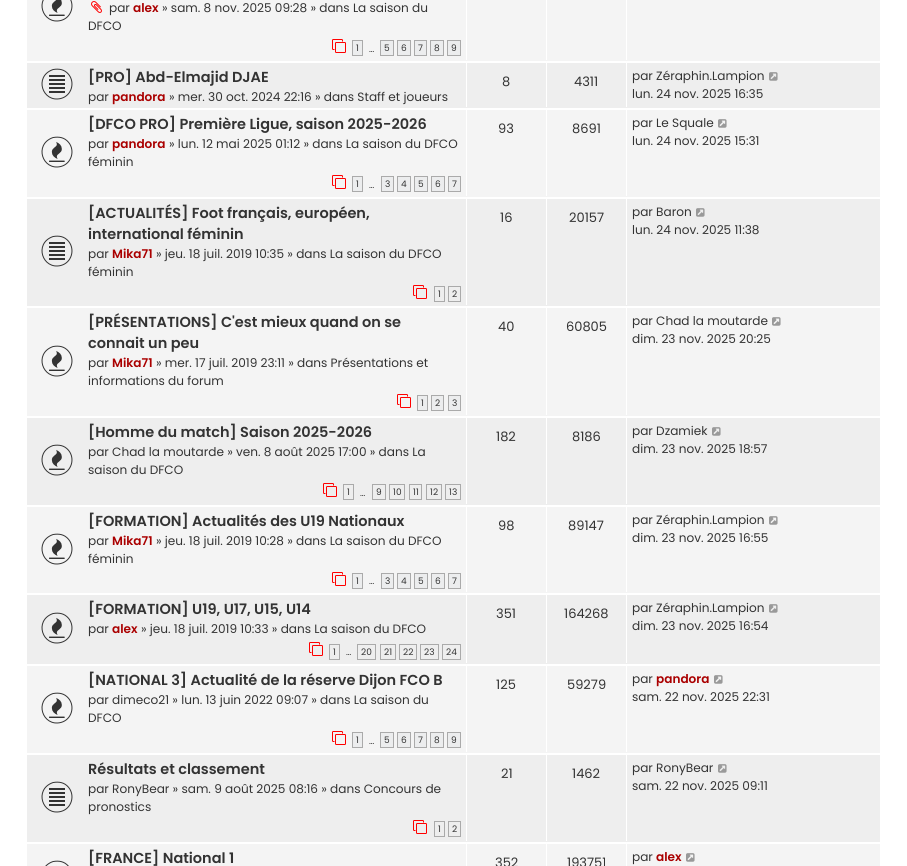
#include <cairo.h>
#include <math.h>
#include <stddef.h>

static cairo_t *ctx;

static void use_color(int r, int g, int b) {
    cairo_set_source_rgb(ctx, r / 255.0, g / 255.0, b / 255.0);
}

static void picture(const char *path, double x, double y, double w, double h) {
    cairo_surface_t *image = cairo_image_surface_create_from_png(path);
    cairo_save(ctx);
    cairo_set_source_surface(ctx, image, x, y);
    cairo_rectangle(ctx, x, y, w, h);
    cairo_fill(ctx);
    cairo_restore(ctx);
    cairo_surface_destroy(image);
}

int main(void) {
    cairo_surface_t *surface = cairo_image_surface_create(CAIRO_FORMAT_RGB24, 907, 866);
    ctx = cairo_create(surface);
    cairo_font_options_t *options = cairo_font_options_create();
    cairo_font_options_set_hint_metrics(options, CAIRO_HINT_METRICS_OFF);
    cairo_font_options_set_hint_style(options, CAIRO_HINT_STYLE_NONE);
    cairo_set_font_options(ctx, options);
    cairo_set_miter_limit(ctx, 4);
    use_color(255, 255, 255);
    cairo_paint(ctx);
    use_color(244, 244, 244);
    cairo_rectangle(ctx, 27, 0, 853, 61);
    cairo_fill(ctx);
    picture("img1.png", 41, 0, 32, 22);
    picture("img2.png", 91, 1, 11, 12);
    cairo_select_font_face(ctx, "Poppins", CAIRO_FONT_SLANT_NORMAL, CAIRO_FONT_WEIGHT_NORMAL);
    cairo_set_font_size(ctx, 12.1);
    use_color(51, 51, 51);
    cairo_move_to(ctx, 109, 12);
    cairo_show_text(ctx, "par");
    cairo_select_font_face(ctx, "Poppins SemiBold", CAIRO_FONT_SLANT_NORMAL, CAIRO_FONT_WEIGHT_NORMAL);
    use_color(170, 0, 0);
    cairo_move_to(ctx, 133, 12);
    cairo_show_text(ctx, "alex");
    cairo_select_font_face(ctx, "Poppins", CAIRO_FONT_SLANT_NORMAL, CAIRO_FONT_WEIGHT_NORMAL);
    use_color(51, 51, 51);
    cairo_move_to(ctx, 162, 12);
    cairo_show_text(ctx, "» sam. 8 nov. 2025 09:28 » dans La saison du");
    cairo_move_to(ctx, 88, 30);
    cairo_show_text(ctx, "DFCO");
    picture("img3.png", 332, 39, 14, 14);
    use_color(236, 237, 238);
    cairo_rectangle(ctx, 352.5, 40.5, 10, 15);
    cairo_fill_preserve(ctx);
    use_color(170, 170, 170);
    cairo_set_line_width(ctx, 1);
    cairo_stroke(ctx);
    cairo_set_font_size(ctx, 9);
    use_color(51, 51, 51);
    cairo_move_to(ctx, 356, 51);
    cairo_show_text(ctx, "1");
    use_color(236, 237, 238);
    cairo_rectangle(ctx, 380.5, 40.5, 13, 15);
    cairo_fill_preserve(ctx);
    use_color(170, 170, 170);
    cairo_stroke(ctx);
    use_color(51, 51, 51);
    cairo_move_to(ctx, 384, 51);
    cairo_show_text(ctx, "5");
    use_color(236, 237, 238);
    cairo_rectangle(ctx, 397.5, 40.5, 13, 15);
    cairo_fill_preserve(ctx);
    use_color(170, 170, 170);
    cairo_stroke(ctx);
    use_color(51, 51, 51);
    cairo_move_to(ctx, 401, 51);
    cairo_show_text(ctx, "6");
    use_color(236, 237, 238);
    cairo_rectangle(ctx, 414.5, 40.5, 12, 15);
    cairo_fill_preserve(ctx);
    use_color(170, 170, 170);
    cairo_stroke(ctx);
    use_color(51, 51, 51);
    cairo_move_to(ctx, 418, 51);
    cairo_show_text(ctx, "7");
    use_color(236, 237, 238);
    cairo_rectangle(ctx, 430.5, 40.5, 13, 15);
    cairo_fill_preserve(ctx);
    use_color(170, 170, 170);
    cairo_stroke(ctx);
    use_color(51, 51, 51);
    cairo_move_to(ctx, 434, 51);
    cairo_show_text(ctx, "8");
    use_color(236, 237, 238);
    cairo_rectangle(ctx, 447.5, 40.5, 13, 15);
    cairo_fill_preserve(ctx);
    use_color(170, 170, 170);
    cairo_stroke(ctx);
    use_color(51, 51, 51);
    cairo_move_to(ctx, 451, 51);
    cairo_show_text(ctx, "9");
    cairo_move_to(ctx, 369, 52);
    cairo_show_text(ctx, "…");
    use_color(255, 255, 255);
    cairo_rectangle(ctx, 466, 0, 1, 60);
    cairo_fill(ctx);
    cairo_rectangle(ctx, 546, 0, 1, 60);
    cairo_fill(ctx);
    cairo_rectangle(ctx, 626, 0, 1, 60);
    cairo_fill(ctx);
    use_color(238, 238, 238);
    cairo_rectangle(ctx, 27, 63, 853, 45);
    cairo_fill(ctx);
    picture("img4.png", 41, 68, 32, 32);
    cairo_select_font_face(ctx, "Poppins SemiBold", CAIRO_FONT_SLANT_NORMAL, CAIRO_FONT_WEIGHT_NORMAL);
    cairo_set_font_size(ctx, 14.5);
    use_color(51, 51, 51);
    cairo_move_to(ctx, 88, 82);
    cairo_show_text(ctx, "[PRO] Abd-Elmajid DJAE");
    cairo_select_font_face(ctx, "Poppins", CAIRO_FONT_SLANT_NORMAL, CAIRO_FONT_WEIGHT_NORMAL);
    cairo_set_font_size(ctx, 12.1);
    cairo_move_to(ctx, 88, 101);
    cairo_show_text(ctx, "par");
    cairo_select_font_face(ctx, "Poppins SemiBold", CAIRO_FONT_SLANT_NORMAL, CAIRO_FONT_WEIGHT_NORMAL);
    use_color(170, 0, 0);
    cairo_move_to(ctx, 112, 101);
    cairo_show_text(ctx, "pandora");
    cairo_select_font_face(ctx, "Poppins", CAIRO_FONT_SLANT_NORMAL, CAIRO_FONT_WEIGHT_NORMAL);
    use_color(51, 51, 51);
    cairo_move_to(ctx, 169, 101);
    cairo_show_text(ctx, "» mer. 30 oct. 2024 22:16 » dans Staff et joueurs");
    use_color(255, 255, 255);
    cairo_rectangle(ctx, 466, 63, 1, 44);
    cairo_fill(ctx);
    cairo_set_font_size(ctx, 13);
    use_color(51, 51, 51);
    cairo_move_to(ctx, 502, 86);
    cairo_show_text(ctx, "8");
    use_color(255, 255, 255);
    cairo_rectangle(ctx, 546, 63, 1, 44);
    cairo_fill(ctx);
    use_color(51, 51, 51);
    cairo_move_to(ctx, 574, 86);
    cairo_show_text(ctx, "4311");
    use_color(255, 255, 255);
    cairo_rectangle(ctx, 626, 63, 1, 44);
    cairo_fill(ctx);
    cairo_set_font_size(ctx, 12.1);
    use_color(51, 51, 51);
    cairo_move_to(ctx, 632, 80);
    cairo_show_text(ctx, "par Zéraphin.Lampion");
    picture("img5.png", 769, 72, 9, 9);
    cairo_move_to(ctx, 632, 98);
    cairo_show_text(ctx, "lun. 24 nov. 2025 16:35");
    use_color(244, 244, 244);
    cairo_rectangle(ctx, 27, 110, 853, 87);
    cairo_fill(ctx);
    picture("img6.png", 41, 136, 32, 32);
    cairo_select_font_face(ctx, "Poppins SemiBold", CAIRO_FONT_SLANT_NORMAL, CAIRO_FONT_WEIGHT_NORMAL);
    cairo_set_font_size(ctx, 14.5);
    use_color(51, 51, 51);
    cairo_move_to(ctx, 88, 129);
    cairo_show_text(ctx, "[DFCO PRO] Première Ligue, saison 2025-2026");
    cairo_select_font_face(ctx, "Poppins", CAIRO_FONT_SLANT_NORMAL, CAIRO_FONT_WEIGHT_NORMAL);
    cairo_set_font_size(ctx, 12.1);
    cairo_move_to(ctx, 88, 148);
    cairo_show_text(ctx, "par");
    cairo_select_font_face(ctx, "Poppins SemiBold", CAIRO_FONT_SLANT_NORMAL, CAIRO_FONT_WEIGHT_NORMAL);
    use_color(170, 0, 0);
    cairo_move_to(ctx, 112, 148);
    cairo_show_text(ctx, "pandora");
    cairo_select_font_face(ctx, "Poppins", CAIRO_FONT_SLANT_NORMAL, CAIRO_FONT_WEIGHT_NORMAL);
    use_color(51, 51, 51);
    cairo_move_to(ctx, 169, 148);
    cairo_show_text(ctx, "» lun. 12 mai 2025 01:12 » dans La saison du DFCO");
    cairo_move_to(ctx, 88, 166);
    cairo_show_text(ctx, "féminin");
    picture("img3.png", 332, 175, 14, 14);
    use_color(236, 237, 238);
    cairo_rectangle(ctx, 352.5, 176.5, 10, 15);
    cairo_fill_preserve(ctx);
    use_color(170, 170, 170);
    cairo_stroke(ctx);
    cairo_set_font_size(ctx, 9);
    use_color(51, 51, 51);
    cairo_move_to(ctx, 356, 187);
    cairo_show_text(ctx, "1");
    use_color(236, 237, 238);
    cairo_rectangle(ctx, 381.5, 176.5, 12, 15);
    cairo_fill_preserve(ctx);
    use_color(170, 170, 170);
    cairo_stroke(ctx);
    use_color(51, 51, 51);
    cairo_move_to(ctx, 385, 187);
    cairo_show_text(ctx, "3");
    use_color(236, 237, 238);
    cairo_rectangle(ctx, 397.5, 176.5, 13, 15);
    cairo_fill_preserve(ctx);
    use_color(170, 170, 170);
    cairo_stroke(ctx);
    use_color(51, 51, 51);
    cairo_move_to(ctx, 401, 187);
    cairo_show_text(ctx, "4");
    use_color(236, 237, 238);
    cairo_rectangle(ctx, 414.5, 176.5, 13, 15);
    cairo_fill_preserve(ctx);
    use_color(170, 170, 170);
    cairo_stroke(ctx);
    use_color(51, 51, 51);
    cairo_move_to(ctx, 418, 187);
    cairo_show_text(ctx, "5");
    use_color(236, 237, 238);
    cairo_rectangle(ctx, 431.5, 176.5, 13, 15);
    cairo_fill_preserve(ctx);
    use_color(170, 170, 170);
    cairo_stroke(ctx);
    use_color(51, 51, 51);
    cairo_move_to(ctx, 435, 187);
    cairo_show_text(ctx, "6");
    use_color(236, 237, 238);
    cairo_rectangle(ctx, 448.5, 176.5, 12, 15);
    cairo_fill_preserve(ctx);
    use_color(170, 170, 170);
    cairo_stroke(ctx);
    use_color(51, 51, 51);
    cairo_move_to(ctx, 452, 187);
    cairo_show_text(ctx, "7");
    cairo_move_to(ctx, 369, 188);
    cairo_show_text(ctx, "…");
    use_color(255, 255, 255);
    cairo_rectangle(ctx, 466, 110, 1, 86);
    cairo_fill(ctx);
    cairo_set_font_size(ctx, 13);
    use_color(51, 51, 51);
    cairo_move_to(ctx, 498, 133);
    cairo_show_text(ctx, "93");
    use_color(255, 255, 255);
    cairo_rectangle(ctx, 546, 110, 1, 86);
    cairo_fill(ctx);
    use_color(51, 51, 51);
    cairo_move_to(ctx, 572, 133);
    cairo_show_text(ctx, "8691");
    use_color(255, 255, 255);
    cairo_rectangle(ctx, 626, 110, 1, 86);
    cairo_fill(ctx);
    cairo_set_font_size(ctx, 12.1);
    use_color(51, 51, 51);
    cairo_move_to(ctx, 632, 127);
    cairo_show_text(ctx, "par Le Squale");
    picture("img7.png", 718, 119, 9, 9);
    cairo_move_to(ctx, 632, 145);
    cairo_show_text(ctx, "lun. 24 nov. 2025 15:31");
    use_color(238, 238, 238);
    cairo_rectangle(ctx, 27, 199, 853, 107);
    cairo_fill(ctx);
    picture("img4.png", 41, 235, 32, 32);
    cairo_select_font_face(ctx, "Poppins SemiBold", CAIRO_FONT_SLANT_NORMAL, CAIRO_FONT_WEIGHT_NORMAL);
    cairo_set_font_size(ctx, 14.5);
    use_color(51, 51, 51);
    cairo_move_to(ctx, 88, 218);
    cairo_show_text(ctx, "[ACTUALITÉS] Foot français, européen,");
    cairo_move_to(ctx, 88, 239);
    cairo_show_text(ctx, "international féminin");
    cairo_select_font_face(ctx, "Poppins", CAIRO_FONT_SLANT_NORMAL, CAIRO_FONT_WEIGHT_NORMAL);
    cairo_set_font_size(ctx, 12.1);
    cairo_move_to(ctx, 88, 258);
    cairo_show_text(ctx, "par");
    cairo_select_font_face(ctx, "Poppins SemiBold", CAIRO_FONT_SLANT_NORMAL, CAIRO_FONT_WEIGHT_NORMAL);
    use_color(170, 0, 0);
    cairo_move_to(ctx, 112, 258);
    cairo_show_text(ctx, "Mika71");
    cairo_select_font_face(ctx, "Poppins", CAIRO_FONT_SLANT_NORMAL, CAIRO_FONT_WEIGHT_NORMAL);
    use_color(51, 51, 51);
    cairo_move_to(ctx, 156, 258);
    cairo_show_text(ctx, "» jeu. 18 juil. 2019 10:35 » dans La saison du DFCO");
    cairo_move_to(ctx, 88, 276);
    cairo_show_text(ctx, "féminin");
    picture("img8.png", 413, 285, 14, 14);
    cairo_rectangle(ctx, 434.5, 286.5, 10, 15);
    use_color(170, 170, 170);
    cairo_stroke(ctx);
    cairo_set_font_size(ctx, 9);
    use_color(51, 51, 51);
    cairo_move_to(ctx, 438, 297);
    cairo_show_text(ctx, "1");
    cairo_rectangle(ctx, 448.5, 286.5, 12, 15);
    use_color(170, 170, 170);
    cairo_stroke(ctx);
    use_color(51, 51, 51);
    cairo_move_to(ctx, 452, 297);
    cairo_show_text(ctx, "2");
    use_color(255, 255, 255);
    cairo_rectangle(ctx, 466, 199, 1, 106);
    cairo_fill(ctx);
    cairo_set_font_size(ctx, 13);
    use_color(51, 51, 51);
    cairo_move_to(ctx, 500, 222);
    cairo_show_text(ctx, "16");
    use_color(255, 255, 255);
    cairo_rectangle(ctx, 546, 199, 1, 106);
    cairo_fill(ctx);
    use_color(51, 51, 51);
    cairo_move_to(ctx, 569, 222);
    cairo_show_text(ctx, "20157");
    use_color(255, 255, 255);
    cairo_rectangle(ctx, 626, 199, 1, 106);
    cairo_fill(ctx);
    cairo_set_font_size(ctx, 12.1);
    use_color(51, 51, 51);
    cairo_move_to(ctx, 632, 216);
    cairo_show_text(ctx, "par Baron");
    picture("img5.png", 696, 208, 9, 9);
    cairo_move_to(ctx, 632, 234);
    cairo_show_text(ctx, "lun. 24 nov. 2025 11:38");
    use_color(244, 244, 244);
    cairo_rectangle(ctx, 27, 308, 853, 108);
    cairo_fill(ctx);
    picture("img6.png", 41, 345, 32, 32);
    cairo_select_font_face(ctx, "Poppins SemiBold", CAIRO_FONT_SLANT_NORMAL, CAIRO_FONT_WEIGHT_NORMAL);
    cairo_set_font_size(ctx, 14.5);
    use_color(51, 51, 51);
    cairo_move_to(ctx, 88, 327);
    cairo_show_text(ctx, "[PRÉSENTATIONS] C'est mieux quand on se");
    cairo_move_to(ctx, 88, 348);
    cairo_show_text(ctx, "connait un peu");
    cairo_select_font_face(ctx, "Poppins", CAIRO_FONT_SLANT_NORMAL, CAIRO_FONT_WEIGHT_NORMAL);
    cairo_set_font_size(ctx, 12.1);
    cairo_move_to(ctx, 88, 367);
    cairo_show_text(ctx, "par");
    cairo_select_font_face(ctx, "Poppins SemiBold", CAIRO_FONT_SLANT_NORMAL, CAIRO_FONT_WEIGHT_NORMAL);
    use_color(170, 0, 0);
    cairo_move_to(ctx, 112, 367);
    cairo_show_text(ctx, "Mika71");
    cairo_select_font_face(ctx, "Poppins", CAIRO_FONT_SLANT_NORMAL, CAIRO_FONT_WEIGHT_NORMAL);
    use_color(51, 51, 51);
    cairo_move_to(ctx, 156, 367);
    cairo_show_text(ctx, "» mer. 17 juil. 2019 23:11 » dans Présentations et");
    cairo_move_to(ctx, 88, 385);
    cairo_show_text(ctx, "informations du forum");
    picture("img3.png", 397, 394, 14, 14);
    use_color(236, 237, 238);
    cairo_rectangle(ctx, 417.5, 395.5, 10, 15);
    cairo_fill_preserve(ctx);
    use_color(170, 170, 170);
    cairo_stroke(ctx);
    cairo_set_font_size(ctx, 9);
    use_color(51, 51, 51);
    cairo_move_to(ctx, 421, 406);
    cairo_show_text(ctx, "1");
    use_color(236, 237, 238);
    cairo_rectangle(ctx, 431.5, 395.5, 12, 15);
    cairo_fill_preserve(ctx);
    use_color(170, 170, 170);
    cairo_stroke(ctx);
    use_color(51, 51, 51);
    cairo_move_to(ctx, 435, 406);
    cairo_show_text(ctx, "2");
    use_color(236, 237, 238);
    cairo_rectangle(ctx, 448.5, 395.5, 12, 15);
    cairo_fill_preserve(ctx);
    use_color(170, 170, 170);
    cairo_stroke(ctx);
    use_color(51, 51, 51);
    cairo_move_to(ctx, 452, 406);
    cairo_show_text(ctx, "3");
    use_color(255, 255, 255);
    cairo_rectangle(ctx, 466, 308, 1, 107);
    cairo_fill(ctx);
    cairo_set_font_size(ctx, 13);
    use_color(51, 51, 51);
    cairo_move_to(ctx, 498, 331);
    cairo_show_text(ctx, "40");
    use_color(255, 255, 255);
    cairo_rectangle(ctx, 546, 308, 1, 107);
    cairo_fill(ctx);
    use_color(51, 51, 51);
    cairo_move_to(ctx, 566, 331);
    cairo_show_text(ctx, "60805");
    use_color(255, 255, 255);
    cairo_rectangle(ctx, 626, 308, 1, 107);
    cairo_fill(ctx);
    cairo_set_font_size(ctx, 12.1);
    use_color(51, 51, 51);
    cairo_move_to(ctx, 632, 325);
    cairo_show_text(ctx, "par Chad la moutarde");
    picture("img7.png", 772, 317, 9, 9);
    cairo_move_to(ctx, 632, 343);
    cairo_show_text(ctx, "dim. 23 nov. 2025 20:25");
    use_color(238, 238, 238);
    cairo_rectangle(ctx, 27, 418, 853, 87);
    cairo_fill(ctx);
    picture("img9.png", 41, 444, 32, 32);
    cairo_select_font_face(ctx, "Poppins SemiBold", CAIRO_FONT_SLANT_NORMAL, CAIRO_FONT_WEIGHT_NORMAL);
    cairo_set_font_size(ctx, 14.5);
    use_color(51, 51, 51);
    cairo_move_to(ctx, 88, 437);
    cairo_show_text(ctx, "[Homme du match] Saison 2025-2026");
    cairo_select_font_face(ctx, "Poppins", CAIRO_FONT_SLANT_NORMAL, CAIRO_FONT_WEIGHT_NORMAL);
    cairo_set_font_size(ctx, 12.1);
    cairo_move_to(ctx, 88, 456);
    cairo_show_text(ctx, "par Chad la moutarde » ven. 8 août 2025 17:00 » dans La");
    cairo_move_to(ctx, 88, 474);
    cairo_show_text(ctx, "saison du DFCO");
    picture("img8.png", 323, 483, 14, 14);
    cairo_rectangle(ctx, 343.5, 484.5, 10, 15);
    use_color(170, 170, 170);
    cairo_stroke(ctx);
    cairo_set_font_size(ctx, 9);
    use_color(51, 51, 51);
    cairo_move_to(ctx, 347, 495);
    cairo_show_text(ctx, "1");
    cairo_move_to(ctx, 360, 496);
    cairo_show_text(ctx, "…");
    cairo_rectangle(ctx, 372.5, 484.5, 13, 15);
    use_color(170, 170, 170);
    cairo_stroke(ctx);
    use_color(51, 51, 51);
    cairo_move_to(ctx, 376, 495);
    cairo_show_text(ctx, "9");
    cairo_rectangle(ctx, 389.5, 484.5, 15, 15);
    use_color(170, 170, 170);
    cairo_stroke(ctx);
    use_color(51, 51, 51);
    cairo_move_to(ctx, 393, 495);
    cairo_show_text(ctx, "10");
    cairo_rectangle(ctx, 409.5, 484.5, 12, 15);
    use_color(170, 170, 170);
    cairo_stroke(ctx);
    use_color(51, 51, 51);
    cairo_move_to(ctx, 413, 495);
    cairo_show_text(ctx, "11");
    cairo_rectangle(ctx, 426.5, 484.5, 15, 15);
    use_color(170, 170, 170);
    cairo_stroke(ctx);
    use_color(51, 51, 51);
    cairo_move_to(ctx, 430, 495);
    cairo_show_text(ctx, "12");
    cairo_rectangle(ctx, 445.5, 484.5, 15, 15);
    use_color(170, 170, 170);
    cairo_stroke(ctx);
    use_color(51, 51, 51);
    cairo_move_to(ctx, 449, 495);
    cairo_show_text(ctx, "13");
    use_color(255, 255, 255);
    cairo_rectangle(ctx, 466, 418, 1, 86);
    cairo_fill(ctx);
    cairo_set_font_size(ctx, 13);
    use_color(51, 51, 51);
    cairo_move_to(ctx, 496, 441);
    cairo_show_text(ctx, "182");
    use_color(255, 255, 255);
    cairo_rectangle(ctx, 546, 418, 1, 86);
    cairo_fill(ctx);
    use_color(51, 51, 51);
    cairo_move_to(ctx, 572, 441);
    cairo_show_text(ctx, "8186");
    use_color(255, 255, 255);
    cairo_rectangle(ctx, 626, 418, 1, 86);
    cairo_fill(ctx);
    cairo_set_font_size(ctx, 12.1);
    use_color(51, 51, 51);
    cairo_move_to(ctx, 632, 435);
    cairo_show_text(ctx, "par Dzamiek");
    picture("img5.png", 712, 427, 9, 9);
    cairo_move_to(ctx, 632, 453);
    cairo_show_text(ctx, "dim. 23 nov. 2025 18:57");
    use_color(244, 244, 244);
    cairo_rectangle(ctx, 27, 507, 853, 86);
    cairo_fill(ctx);
    picture("img6.png", 41, 533, 32, 32);
    cairo_select_font_face(ctx, "Poppins SemiBold", CAIRO_FONT_SLANT_NORMAL, CAIRO_FONT_WEIGHT_NORMAL);
    cairo_set_font_size(ctx, 14.5);
    use_color(51, 51, 51);
    cairo_move_to(ctx, 88, 526);
    cairo_show_text(ctx, "[FORMATION] Actualités des U19 Nationaux");
    cairo_select_font_face(ctx, "Poppins", CAIRO_FONT_SLANT_NORMAL, CAIRO_FONT_WEIGHT_NORMAL);
    cairo_set_font_size(ctx, 12.1);
    cairo_move_to(ctx, 88, 545);
    cairo_show_text(ctx, "par");
    cairo_select_font_face(ctx, "Poppins SemiBold", CAIRO_FONT_SLANT_NORMAL, CAIRO_FONT_WEIGHT_NORMAL);
    use_color(170, 0, 0);
    cairo_move_to(ctx, 112, 545);
    cairo_show_text(ctx, "Mika71");
    cairo_select_font_face(ctx, "Poppins", CAIRO_FONT_SLANT_NORMAL, CAIRO_FONT_WEIGHT_NORMAL);
    use_color(51, 51, 51);
    cairo_move_to(ctx, 156, 545);
    cairo_show_text(ctx, "» jeu. 18 juil. 2019 10:28 » dans La saison du DFCO");
    cairo_move_to(ctx, 88, 563);
    cairo_show_text(ctx, "féminin");
    picture("img3.png", 332, 572, 14, 14);
    use_color(236, 237, 238);
    cairo_rectangle(ctx, 352.5, 573.5, 10, 15);
    cairo_fill_preserve(ctx);
    use_color(170, 170, 170);
    cairo_stroke(ctx);
    cairo_set_font_size(ctx, 9);
    use_color(51, 51, 51);
    cairo_move_to(ctx, 356, 584);
    cairo_show_text(ctx, "1");
    cairo_move_to(ctx, 369, 584);
    cairo_show_text(ctx, "…");
    use_color(236, 237, 238);
    cairo_rectangle(ctx, 381.5, 573.5, 12, 15);
    cairo_fill_preserve(ctx);
    use_color(170, 170, 170);
    cairo_stroke(ctx);
    use_color(51, 51, 51);
    cairo_move_to(ctx, 385, 584);
    cairo_show_text(ctx, "3");
    use_color(236, 237, 238);
    cairo_rectangle(ctx, 397.5, 573.5, 13, 15);
    cairo_fill_preserve(ctx);
    use_color(170, 170, 170);
    cairo_stroke(ctx);
    use_color(51, 51, 51);
    cairo_move_to(ctx, 401, 584);
    cairo_show_text(ctx, "4");
    use_color(236, 237, 238);
    cairo_rectangle(ctx, 414.5, 573.5, 13, 15);
    cairo_fill_preserve(ctx);
    use_color(170, 170, 170);
    cairo_stroke(ctx);
    use_color(51, 51, 51);
    cairo_move_to(ctx, 418, 584);
    cairo_show_text(ctx, "5");
    use_color(236, 237, 238);
    cairo_rectangle(ctx, 431.5, 573.5, 13, 15);
    cairo_fill_preserve(ctx);
    use_color(170, 170, 170);
    cairo_stroke(ctx);
    use_color(51, 51, 51);
    cairo_move_to(ctx, 435, 584);
    cairo_show_text(ctx, "6");
    use_color(236, 237, 238);
    cairo_rectangle(ctx, 448.5, 573.5, 12, 15);
    cairo_fill_preserve(ctx);
    use_color(170, 170, 170);
    cairo_stroke(ctx);
    use_color(51, 51, 51);
    cairo_move_to(ctx, 452, 584);
    cairo_show_text(ctx, "7");
    use_color(255, 255, 255);
    cairo_rectangle(ctx, 466, 507, 1, 85);
    cairo_fill(ctx);
    cairo_set_font_size(ctx, 13);
    use_color(51, 51, 51);
    cairo_move_to(ctx, 498, 530);
    cairo_show_text(ctx, "98");
    use_color(255, 255, 255);
    cairo_rectangle(ctx, 546, 507, 1, 85);
    cairo_fill(ctx);
    use_color(51, 51, 51);
    cairo_move_to(ctx, 568, 530);
    cairo_show_text(ctx, "89147");
    use_color(255, 255, 255);
    cairo_rectangle(ctx, 626, 507, 1, 85);
    cairo_fill(ctx);
    cairo_set_font_size(ctx, 12.1);
    use_color(51, 51, 51);
    cairo_move_to(ctx, 632, 524);
    cairo_show_text(ctx, "par Zéraphin.Lampion");
    picture("img7.png", 769, 516, 9, 9);
    cairo_move_to(ctx, 632, 542);
    cairo_show_text(ctx, "dim. 23 nov. 2025 16:55");
    use_color(238, 238, 238);
    cairo_rectangle(ctx, 27, 595, 853, 69);
    cairo_fill(ctx);
    picture("img9.png", 41, 612, 32, 32);
    cairo_select_font_face(ctx, "Poppins SemiBold", CAIRO_FONT_SLANT_NORMAL, CAIRO_FONT_WEIGHT_NORMAL);
    cairo_set_font_size(ctx, 14.5);
    use_color(51, 51, 51);
    cairo_move_to(ctx, 88, 614);
    cairo_show_text(ctx, "[FORMATION] U19, U17, U15, U14");
    cairo_select_font_face(ctx, "Poppins", CAIRO_FONT_SLANT_NORMAL, CAIRO_FONT_WEIGHT_NORMAL);
    cairo_set_font_size(ctx, 12.1);
    cairo_move_to(ctx, 88, 633);
    cairo_show_text(ctx, "par");
    cairo_select_font_face(ctx, "Poppins SemiBold", CAIRO_FONT_SLANT_NORMAL, CAIRO_FONT_WEIGHT_NORMAL);
    use_color(170, 0, 0);
    cairo_move_to(ctx, 112, 633);
    cairo_show_text(ctx, "alex");
    cairo_select_font_face(ctx, "Poppins", CAIRO_FONT_SLANT_NORMAL, CAIRO_FONT_WEIGHT_NORMAL);
    use_color(51, 51, 51);
    cairo_move_to(ctx, 141, 633);
    cairo_show_text(ctx, "» jeu. 18 juil. 2019 10:33 » dans La saison du DFCO");
    picture("img8.png", 309, 642, 14, 14);
    cairo_rectangle(ctx, 329.5, 644.5, 10, 15);
    use_color(170, 170, 170);
    cairo_stroke(ctx);
    cairo_set_font_size(ctx, 9);
    use_color(51, 51, 51);
    cairo_move_to(ctx, 333, 655);
    cairo_show_text(ctx, "1");
    cairo_move_to(ctx, 346, 655);
    cairo_show_text(ctx, "…");
    cairo_rectangle(ctx, 357.5, 644.5, 18, 15);
    use_color(170, 170, 170);
    cairo_stroke(ctx);
    use_color(51, 51, 51);
    cairo_move_to(ctx, 361, 655);
    cairo_show_text(ctx, "20");
    cairo_rectangle(ctx, 380.5, 644.5, 15, 15);
    use_color(170, 170, 170);
    cairo_stroke(ctx);
    use_color(51, 51, 51);
    cairo_move_to(ctx, 384, 655);
    cairo_show_text(ctx, "21");
    cairo_rectangle(ctx, 399.5, 644.5, 17, 15);
    use_color(170, 170, 170);
    cairo_stroke(ctx);
    use_color(51, 51, 51);
    cairo_move_to(ctx, 403, 655);
    cairo_show_text(ctx, "22");
    cairo_rectangle(ctx, 420.5, 644.5, 18, 15);
    use_color(170, 170, 170);
    cairo_stroke(ctx);
    use_color(51, 51, 51);
    cairo_move_to(ctx, 424, 655);
    cairo_show_text(ctx, "23");
    cairo_rectangle(ctx, 442.5, 644.5, 18, 15);
    use_color(170, 170, 170);
    cairo_stroke(ctx);
    use_color(51, 51, 51);
    cairo_move_to(ctx, 446, 655);
    cairo_show_text(ctx, "24");
    use_color(255, 255, 255);
    cairo_rectangle(ctx, 466, 595, 1, 68);
    cairo_fill(ctx);
    cairo_set_font_size(ctx, 13);
    use_color(51, 51, 51);
    cairo_move_to(ctx, 496, 618);
    cairo_show_text(ctx, "351");
    use_color(255, 255, 255);
    cairo_rectangle(ctx, 546, 595, 1, 68);
    cairo_fill(ctx);
    use_color(51, 51, 51);
    cairo_move_to(ctx, 564, 618);
    cairo_show_text(ctx, "164268");
    use_color(255, 255, 255);
    cairo_rectangle(ctx, 626, 595, 1, 68);
    cairo_fill(ctx);
    cairo_set_font_size(ctx, 12.1);
    use_color(51, 51, 51);
    cairo_move_to(ctx, 632, 612);
    cairo_show_text(ctx, "par Zéraphin.Lampion");
    picture("img5.png", 769, 604, 9, 9);
    cairo_move_to(ctx, 632, 630);
    cairo_show_text(ctx, "dim. 23 nov. 2025 16:54");
    use_color(244, 244, 244);
    cairo_rectangle(ctx, 27, 666, 853, 87);
    cairo_fill(ctx);
    picture("img6.png", 41, 692, 32, 32);
    cairo_select_font_face(ctx, "Poppins SemiBold", CAIRO_FONT_SLANT_NORMAL, CAIRO_FONT_WEIGHT_NORMAL);
    cairo_set_font_size(ctx, 14.5);
    use_color(51, 51, 51);
    cairo_move_to(ctx, 88, 685);
    cairo_show_text(ctx, "[NATIONAL 3] Actualité de la réserve Dijon FCO B");
    cairo_select_font_face(ctx, "Poppins", CAIRO_FONT_SLANT_NORMAL, CAIRO_FONT_WEIGHT_NORMAL);
    cairo_set_font_size(ctx, 12.1);
    cairo_move_to(ctx, 88, 704);
    cairo_show_text(ctx, "par dimeco21 » lun. 13 juin 2022 09:07 » dans La saison du");
    cairo_move_to(ctx, 88, 722);
    cairo_show_text(ctx, "DFCO");
    picture("img3.png", 332, 731, 14, 14);
    use_color(236, 237, 238);
    cairo_rectangle(ctx, 352.5, 732.5, 10, 15);
    cairo_fill_preserve(ctx);
    use_color(170, 170, 170);
    cairo_stroke(ctx);
    cairo_set_font_size(ctx, 9);
    use_color(51, 51, 51);
    cairo_move_to(ctx, 356, 743);
    cairo_show_text(ctx, "1");
    use_color(236, 237, 238);
    cairo_rectangle(ctx, 380.5, 732.5, 13, 15);
    cairo_fill_preserve(ctx);
    use_color(170, 170, 170);
    cairo_stroke(ctx);
    use_color(51, 51, 51);
    cairo_move_to(ctx, 384, 743);
    cairo_show_text(ctx, "5");
    use_color(236, 237, 238);
    cairo_rectangle(ctx, 397.5, 732.5, 13, 15);
    cairo_fill_preserve(ctx);
    use_color(170, 170, 170);
    cairo_stroke(ctx);
    use_color(51, 51, 51);
    cairo_move_to(ctx, 401, 743);
    cairo_show_text(ctx, "6");
    use_color(236, 237, 238);
    cairo_rectangle(ctx, 414.5, 732.5, 12, 15);
    cairo_fill_preserve(ctx);
    use_color(170, 170, 170);
    cairo_stroke(ctx);
    use_color(51, 51, 51);
    cairo_move_to(ctx, 418, 743);
    cairo_show_text(ctx, "7");
    use_color(236, 237, 238);
    cairo_rectangle(ctx, 430.5, 732.5, 13, 15);
    cairo_fill_preserve(ctx);
    use_color(170, 170, 170);
    cairo_stroke(ctx);
    use_color(51, 51, 51);
    cairo_move_to(ctx, 434, 743);
    cairo_show_text(ctx, "8");
    use_color(236, 237, 238);
    cairo_rectangle(ctx, 447.5, 732.5, 13, 15);
    cairo_fill_preserve(ctx);
    use_color(170, 170, 170);
    cairo_stroke(ctx);
    use_color(51, 51, 51);
    cairo_move_to(ctx, 451, 743);
    cairo_show_text(ctx, "9");
    cairo_move_to(ctx, 369, 744);
    cairo_show_text(ctx, "…");
    use_color(255, 255, 255);
    cairo_rectangle(ctx, 466, 666, 1, 86);
    cairo_fill(ctx);
    cairo_set_font_size(ctx, 13);
    use_color(51, 51, 51);
    cairo_move_to(ctx, 496, 689);
    cairo_show_text(ctx, "125");
    use_color(255, 255, 255);
    cairo_rectangle(ctx, 546, 666, 1, 86);
    cairo_fill(ctx);
    use_color(51, 51, 51);
    cairo_move_to(ctx, 567, 689);
    cairo_show_text(ctx, "59279");
    use_color(255, 255, 255);
    cairo_rectangle(ctx, 626, 666, 1, 86);
    cairo_fill(ctx);
    cairo_set_font_size(ctx, 12.1);
    use_color(51, 51, 51);
    cairo_move_to(ctx, 632, 683);
    cairo_show_text(ctx, "par");
    cairo_select_font_face(ctx, "Poppins SemiBold", CAIRO_FONT_SLANT_NORMAL, CAIRO_FONT_WEIGHT_NORMAL);
    use_color(170, 0, 0);
    cairo_move_to(ctx, 656, 683);
    cairo_show_text(ctx, "pandora");
    picture("img7.png", 714, 675, 9, 9);
    cairo_select_font_face(ctx, "Poppins", CAIRO_FONT_SLANT_NORMAL, CAIRO_FONT_WEIGHT_NORMAL);
    use_color(51, 51, 51);
    cairo_move_to(ctx, 632, 701);
    cairo_show_text(ctx, "sam. 22 nov. 2025 22:31");
    use_color(238, 238, 238);
    cairo_rectangle(ctx, 27, 755, 853, 87);
    cairo_fill(ctx);
    picture("img4.png", 41, 781, 32, 32);
    cairo_select_font_face(ctx, "Poppins SemiBold", CAIRO_FONT_SLANT_NORMAL, CAIRO_FONT_WEIGHT_NORMAL);
    cairo_set_font_size(ctx, 14.5);
    use_color(51, 51, 51);
    cairo_move_to(ctx, 88, 774);
    cairo_show_text(ctx, "Résultats et classement");
    cairo_select_font_face(ctx, "Poppins", CAIRO_FONT_SLANT_NORMAL, CAIRO_FONT_WEIGHT_NORMAL);
    cairo_set_font_size(ctx, 12.1);
    cairo_move_to(ctx, 88, 793);
    cairo_show_text(ctx, "par RonyBear » sam. 9 août 2025 08:16 » dans Concours de");
    cairo_move_to(ctx, 88, 811);
    cairo_show_text(ctx, "pronostics");
    picture("img8.png", 413, 820, 14, 14);
    cairo_rectangle(ctx, 434.5, 821.5, 10, 15);
    use_color(170, 170, 170);
    cairo_stroke(ctx);
    cairo_set_font_size(ctx, 9);
    use_color(51, 51, 51);
    cairo_move_to(ctx, 438, 832);
    cairo_show_text(ctx, "1");
    cairo_rectangle(ctx, 448.5, 821.5, 12, 15);
    use_color(170, 170, 170);
    cairo_stroke(ctx);
    use_color(51, 51, 51);
    cairo_move_to(ctx, 452, 832);
    cairo_show_text(ctx, "2");
    use_color(255, 255, 255);
    cairo_rectangle(ctx, 466, 755, 1, 86);
    cairo_fill(ctx);
    cairo_set_font_size(ctx, 13);
    use_color(51, 51, 51);
    cairo_move_to(ctx, 501, 778);
    cairo_show_text(ctx, "21");
    use_color(255, 255, 255);
    cairo_rectangle(ctx, 546, 755, 1, 86);
    cairo_fill(ctx);
    use_color(51, 51, 51);
    cairo_move_to(ctx, 572, 778);
    cairo_show_text(ctx, "1462");
    use_color(255, 255, 255);
    cairo_rectangle(ctx, 626, 755, 1, 86);
    cairo_fill(ctx);
    cairo_set_font_size(ctx, 12.1);
    use_color(51, 51, 51);
    cairo_move_to(ctx, 632, 772);
    cairo_show_text(ctx, "par RonyBear");
    picture("img5.png", 718, 764, 9, 9);
    cairo_move_to(ctx, 632, 790);
    cairo_show_text(ctx, "sam. 22 nov. 2025 09:11");
    use_color(244, 244, 244);
    cairo_rectangle(ctx, 27, 844, 853, 22);
    cairo_fill(ctx);
    picture("img10.png", 45, 860, 24, 6);
    cairo_select_font_face(ctx, "Poppins SemiBold", CAIRO_FONT_SLANT_NORMAL, CAIRO_FONT_WEIGHT_NORMAL);
    cairo_set_font_size(ctx, 14.5);
    use_color(51, 51, 51);
    cairo_move_to(ctx, 88, 863);
    cairo_show_text(ctx, "[FRANCE] National 1");
    use_color(255, 255, 255);
    cairo_rectangle(ctx, 466, 844, 1, 22);
    cairo_fill(ctx);
    cairo_select_font_face(ctx, "Poppins", CAIRO_FONT_SLANT_NORMAL, CAIRO_FONT_WEIGHT_NORMAL);
    cairo_set_font_size(ctx, 13);
    use_color(51, 51, 51);
    cairo_move_to(ctx, 495, 867);
    cairo_show_text(ctx, "352");
    use_color(255, 255, 255);
    cairo_rectangle(ctx, 546, 844, 1, 22);
    cairo_fill(ctx);
    use_color(51, 51, 51);
    cairo_move_to(ctx, 567, 867);
    cairo_show_text(ctx, "193751");
    use_color(255, 255, 255);
    cairo_rectangle(ctx, 626, 844, 1, 22);
    cairo_fill(ctx);
    cairo_set_font_size(ctx, 12.1);
    use_color(51, 51, 51);
    cairo_move_to(ctx, 632, 861);
    cairo_show_text(ctx, "par");
    cairo_select_font_face(ctx, "Poppins SemiBold", CAIRO_FONT_SLANT_NORMAL, CAIRO_FONT_WEIGHT_NORMAL);
    use_color(170, 0, 0);
    cairo_move_to(ctx, 656, 861);
    cairo_show_text(ctx, "alex");
    picture("img7.png", 686, 853, 9, 9);
    cairo_surface_write_to_png(surface, "result.png");
    cairo_font_options_destroy(options);
    cairo_destroy(ctx);
    cairo_surface_destroy(surface);
    return 0;
}
